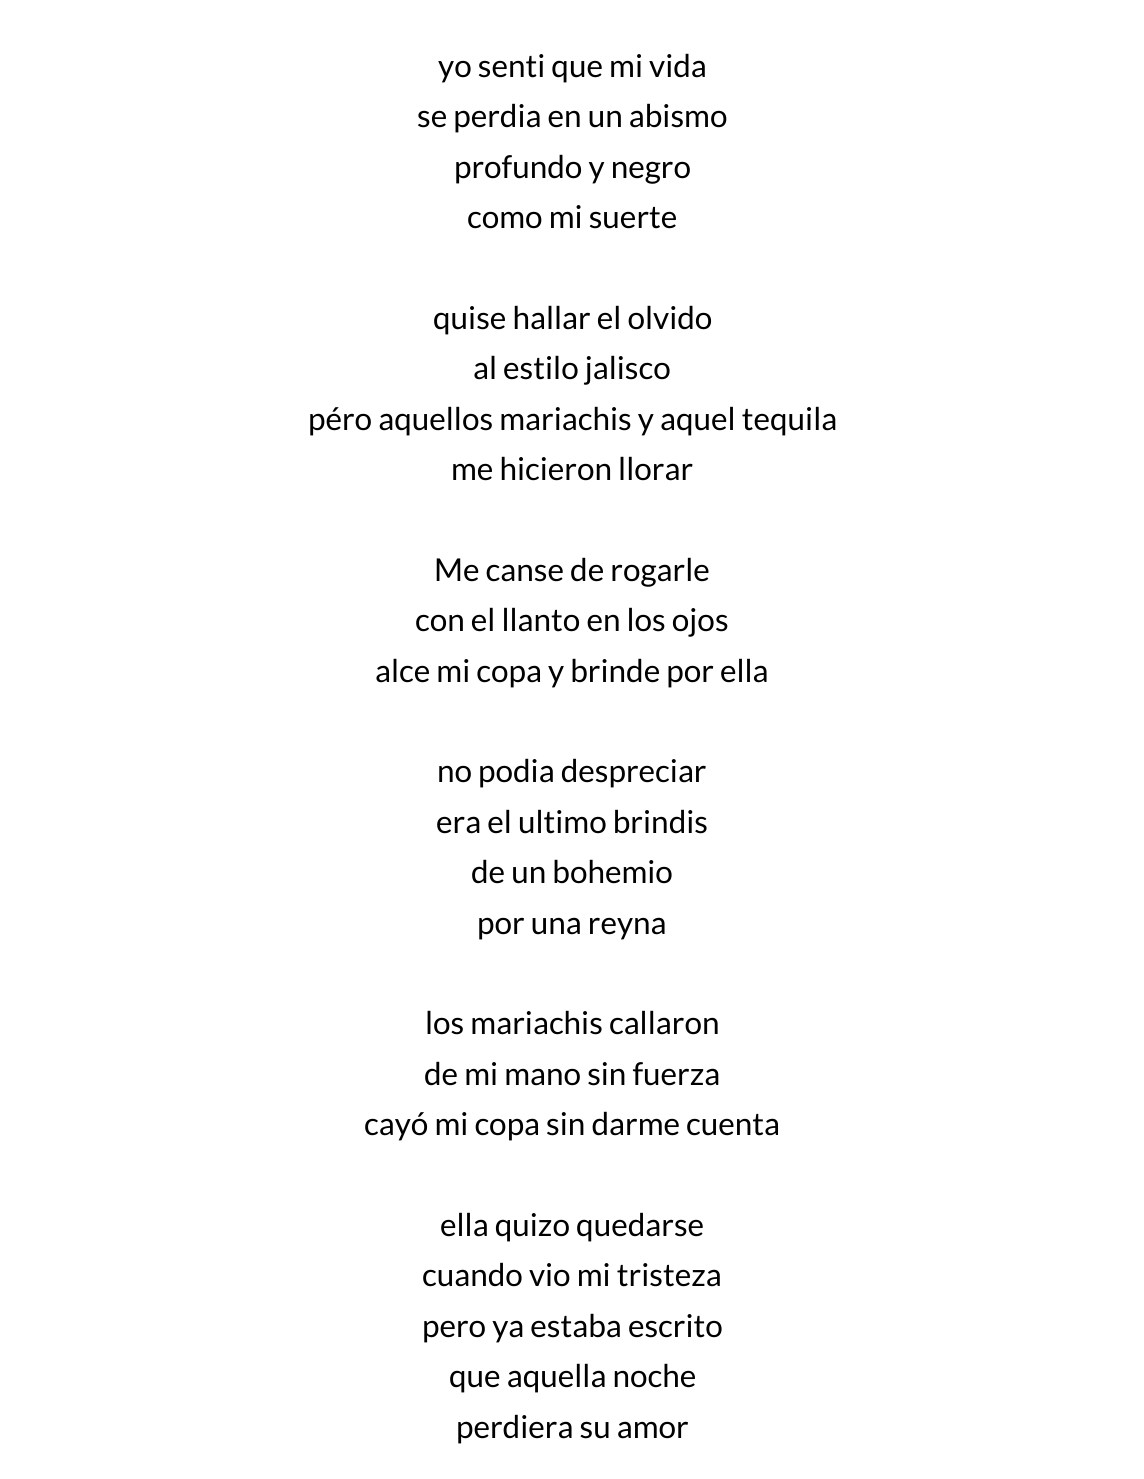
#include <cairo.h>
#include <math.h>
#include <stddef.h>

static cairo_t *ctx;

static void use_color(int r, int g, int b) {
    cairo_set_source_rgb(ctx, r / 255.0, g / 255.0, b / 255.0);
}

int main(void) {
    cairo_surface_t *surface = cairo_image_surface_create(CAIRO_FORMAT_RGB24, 1144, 1479);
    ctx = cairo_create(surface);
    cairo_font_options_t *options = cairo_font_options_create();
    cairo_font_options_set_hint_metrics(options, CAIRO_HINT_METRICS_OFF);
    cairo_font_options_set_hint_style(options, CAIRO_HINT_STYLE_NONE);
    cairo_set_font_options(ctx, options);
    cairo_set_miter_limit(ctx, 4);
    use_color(255, 255, 255);
    cairo_paint(ctx);
    cairo_select_font_face(ctx, "Lato", CAIRO_FONT_SLANT_NORMAL, CAIRO_FONT_WEIGHT_NORMAL);
    cairo_set_font_size(ctx, 31.5);
    use_color(0, 0, 0);
    cairo_move_to(ctx, 438, 77);
    cairo_show_text(ctx, "yo senti que mi vida");
    cairo_move_to(ctx, 417, 127);
    cairo_show_text(ctx, "se perdia en un abismo");
    cairo_move_to(ctx, 454, 178);
    cairo_show_text(ctx, "profundo y negro");
    cairo_move_to(ctx, 467, 228);
    cairo_show_text(ctx, "como mi suerte");
    cairo_move_to(ctx, 433, 329);
    cairo_show_text(ctx, "quise hallar el olvido");
    cairo_move_to(ctx, 473, 379);
    cairo_show_text(ctx, "al estilo jalisco");
    cairo_move_to(ctx, 308, 430);
    cairo_show_text(ctx, "péro aquellos mariachis y aquel tequila");
    cairo_move_to(ctx, 451, 480);
    cairo_show_text(ctx, "me hicieron llorar");
    cairo_move_to(ctx, 434, 581);
    cairo_show_text(ctx, "Me canse de rogarle");
    cairo_move_to(ctx, 415, 631);
    cairo_show_text(ctx, "con el llanto en los ojos");
    cairo_move_to(ctx, 375, 682);
    cairo_show_text(ctx, "alce mi copa y brinde por ella");
    cairo_move_to(ctx, 437, 782);
    cairo_show_text(ctx, "no podia despreciar");
    cairo_move_to(ctx, 436, 833);
    cairo_show_text(ctx, "era el ultimo brindis");
    cairo_move_to(ctx, 471, 883);
    cairo_show_text(ctx, "de un bohemio");
    cairo_move_to(ctx, 477, 934);
    cairo_show_text(ctx, "por una reyna");
    cairo_move_to(ctx, 425, 1034);
    cairo_show_text(ctx, "los mariachis callaron");
    cairo_move_to(ctx, 424, 1085);
    cairo_show_text(ctx, "de mi mano sin fuerza");
    cairo_move_to(ctx, 364, 1135);
    cairo_show_text(ctx, "cayó mi copa sin darme cuenta");
    cairo_move_to(ctx, 440, 1236);
    cairo_show_text(ctx, "ella quizo quedarse");
    cairo_move_to(ctx, 422, 1286);
    cairo_show_text(ctx, "cuando vio mi tristeza");
    cairo_move_to(ctx, 422, 1337);
    cairo_show_text(ctx, "pero ya estaba escrito");
    cairo_move_to(ctx, 449, 1387);
    cairo_show_text(ctx, "que aquella noche");
    cairo_move_to(ctx, 456, 1438);
    cairo_show_text(ctx, "perdiera su amor");
    cairo_surface_write_to_png(surface, "result.png");
    cairo_font_options_destroy(options);
    cairo_destroy(ctx);
    cairo_surface_destroy(surface);
    return 0;
}
